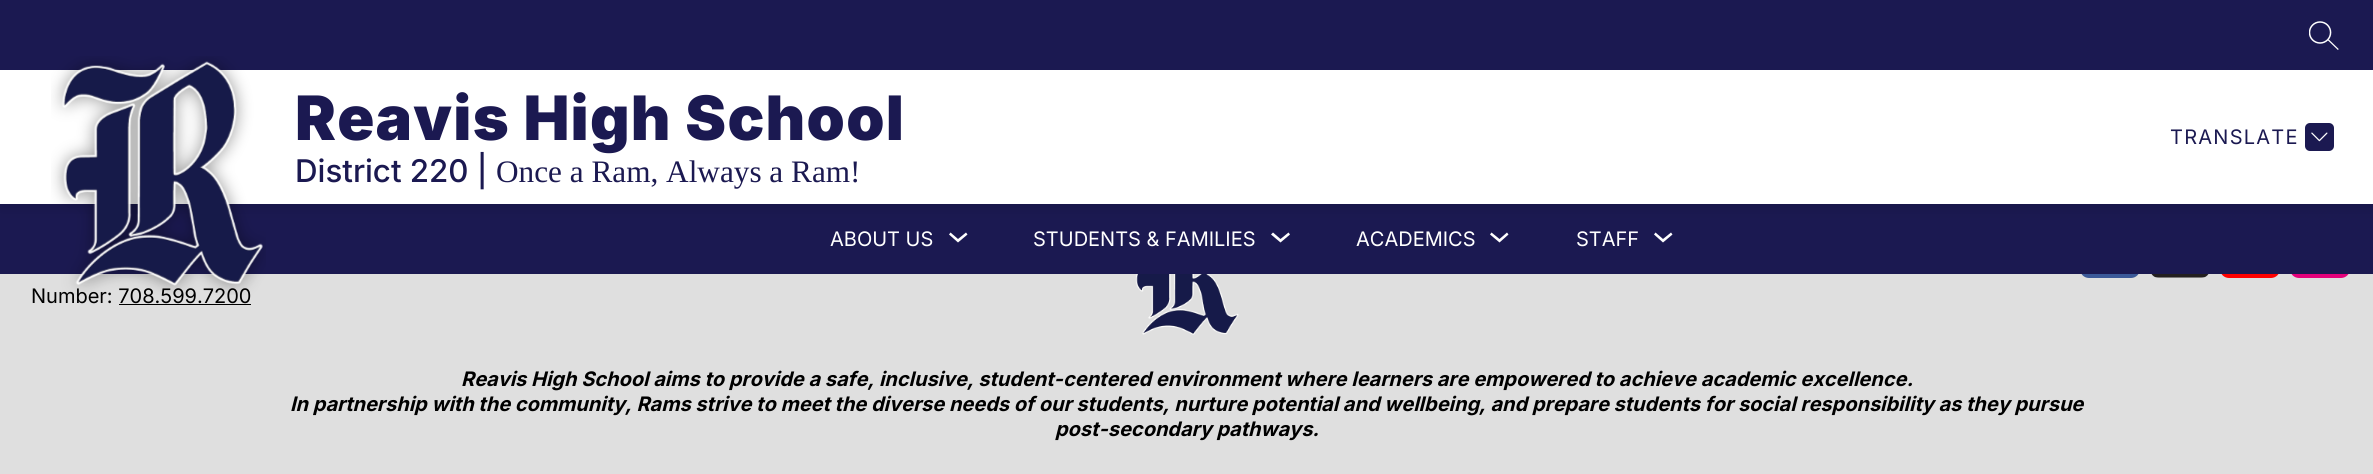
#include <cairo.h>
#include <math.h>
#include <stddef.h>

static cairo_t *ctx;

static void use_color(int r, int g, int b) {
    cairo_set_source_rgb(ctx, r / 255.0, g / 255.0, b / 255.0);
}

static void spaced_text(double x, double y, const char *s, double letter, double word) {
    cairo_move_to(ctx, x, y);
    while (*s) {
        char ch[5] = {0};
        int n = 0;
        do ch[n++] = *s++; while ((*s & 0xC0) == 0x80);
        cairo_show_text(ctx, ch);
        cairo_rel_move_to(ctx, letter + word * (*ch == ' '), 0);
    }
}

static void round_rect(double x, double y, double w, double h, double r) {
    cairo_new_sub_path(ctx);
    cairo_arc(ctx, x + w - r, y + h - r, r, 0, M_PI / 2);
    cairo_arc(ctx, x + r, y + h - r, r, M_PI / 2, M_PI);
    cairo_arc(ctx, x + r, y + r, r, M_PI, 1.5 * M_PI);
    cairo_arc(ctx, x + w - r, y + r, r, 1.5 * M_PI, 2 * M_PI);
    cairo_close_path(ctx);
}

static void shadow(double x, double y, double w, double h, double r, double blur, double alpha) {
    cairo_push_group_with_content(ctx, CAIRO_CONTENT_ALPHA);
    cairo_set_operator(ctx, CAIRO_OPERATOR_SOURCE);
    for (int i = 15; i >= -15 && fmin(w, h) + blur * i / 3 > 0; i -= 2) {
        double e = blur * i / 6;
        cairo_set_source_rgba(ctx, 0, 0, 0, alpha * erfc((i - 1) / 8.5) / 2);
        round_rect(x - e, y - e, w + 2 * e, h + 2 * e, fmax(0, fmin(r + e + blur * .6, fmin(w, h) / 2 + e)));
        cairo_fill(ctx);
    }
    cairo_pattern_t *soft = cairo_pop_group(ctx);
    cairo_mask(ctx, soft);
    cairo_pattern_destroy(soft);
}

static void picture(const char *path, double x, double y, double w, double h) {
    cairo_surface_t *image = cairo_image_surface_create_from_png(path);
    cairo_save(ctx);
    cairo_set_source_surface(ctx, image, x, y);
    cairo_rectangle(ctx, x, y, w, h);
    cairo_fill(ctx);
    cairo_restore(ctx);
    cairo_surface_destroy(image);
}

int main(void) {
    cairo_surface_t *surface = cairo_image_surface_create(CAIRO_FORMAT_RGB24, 2373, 474);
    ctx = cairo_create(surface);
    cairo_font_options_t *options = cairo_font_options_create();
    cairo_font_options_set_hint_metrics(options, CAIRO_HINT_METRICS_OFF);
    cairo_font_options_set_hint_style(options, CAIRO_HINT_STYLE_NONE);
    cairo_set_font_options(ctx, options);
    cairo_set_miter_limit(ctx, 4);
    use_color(223, 223, 223);
    cairo_paint(ctx);
    use_color(27, 25, 81);
    cairo_rectangle(ctx, 0, 204, 2373, 70);
    cairo_fill(ctx);
    use_color(0, 0, 0);
    shadow(0, 5, 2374, 204, 0, 6, 0.1);
    use_color(255, 255, 255);
    cairo_rectangle(ctx, 0, 70, 2373, 134);
    cairo_fill(ctx);
    use_color(27, 25, 81);
    cairo_rectangle(ctx, 0, 0, 2373, 70);
    cairo_fill(ctx);
    picture("img1.png", 2309, 21, 30, 29);
    cairo_select_font_face(ctx, "Inter", CAIRO_FONT_SLANT_NORMAL, CAIRO_FONT_WEIGHT_NORMAL);
    cairo_set_font_size(ctx, 20);
    use_color(0, 0, 0);
    cairo_move_to(ctx, 31, 303);
    cairo_show_text(ctx, "Number: 708.599.7200");
    picture("img2.png", 51, 56, 215, 239);
    cairo_select_font_face(ctx, "Inter Black", CAIRO_FONT_SLANT_NORMAL, CAIRO_FONT_WEIGHT_NORMAL);
    cairo_set_font_size(ctx, 61.25);
    use_color(27, 25, 81);
    spaced_text(295, 140, "Reavis High School", 1.25, 0);
    cairo_select_font_face(ctx, "Inter Medium", CAIRO_FONT_SLANT_NORMAL, CAIRO_FONT_WEIGHT_NORMAL);
    cairo_set_font_size(ctx, 31.25);
    cairo_move_to(ctx, 295, 182);
    cairo_show_text(ctx, "District 220 |");
    cairo_select_font_face(ctx, "Liberation Serif", CAIRO_FONT_SLANT_NORMAL, CAIRO_FONT_WEIGHT_NORMAL);
    cairo_move_to(ctx, 496, 182);
    cairo_show_text(ctx, "Once a Ram, Always a Ram!");
    cairo_select_font_face(ctx, "Inter", CAIRO_FONT_SLANT_NORMAL, CAIRO_FONT_WEIGHT_NORMAL);
    cairo_set_font_size(ctx, 20);
    spaced_text(2170, 144, "TRANSLATE", 1.25, 0);
    picture("img3.png", 2305, 123, 29, 28);
    use_color(255, 255, 255);
    cairo_move_to(ctx, 830, 246);
    cairo_show_text(ctx, "ABOUT US");
    cairo_set_fill_rule(ctx, CAIRO_FILL_RULE_EVEN_ODD);
    cairo_new_path(ctx);
    cairo_move_to(ctx, 966, 232.5);
    cairo_line_to(ctx, 958, 239);
    cairo_line_to(ctx, 950.5, 232.5);
    cairo_line_to(ctx, 949, 234.5);
    cairo_line_to(ctx, 958, 242.5);
    cairo_line_to(ctx, 967.5, 234.5);
    cairo_close_path(ctx);
    cairo_fill(ctx);
    cairo_move_to(ctx, 1033, 246);
    cairo_show_text(ctx, "STUDENTS & FAMILIES");
    cairo_new_path(ctx);
    cairo_move_to(ctx, 1288.5, 232.5);
    cairo_line_to(ctx, 1280.5, 239);
    cairo_line_to(ctx, 1273, 232.5);
    cairo_line_to(ctx, 1271, 234.5);
    cairo_line_to(ctx, 1280.5, 242.5);
    cairo_line_to(ctx, 1290, 234.5);
    cairo_close_path(ctx);
    cairo_fill(ctx);
    cairo_move_to(ctx, 1356, 246);
    cairo_show_text(ctx, "ACADEMICS");
    cairo_new_path(ctx);
    cairo_move_to(ctx, 1507, 232.5);
    cairo_line_to(ctx, 1499.5, 239);
    cairo_line_to(ctx, 1491.5, 232.5);
    cairo_line_to(ctx, 1490, 234.5);
    cairo_line_to(ctx, 1499.5, 242.5);
    cairo_line_to(ctx, 1508.5, 234.5);
    cairo_close_path(ctx);
    cairo_fill(ctx);
    cairo_move_to(ctx, 1576, 246);
    cairo_show_text(ctx, "STAFF");
    cairo_new_path(ctx);
    cairo_move_to(ctx, 1671, 232.5);
    cairo_line_to(ctx, 1663, 239);
    cairo_line_to(ctx, 1655.5, 232.5);
    cairo_line_to(ctx, 1654, 234.5);
    cairo_line_to(ctx, 1663, 242.5);
    cairo_line_to(ctx, 1672.5, 234.5);
    cairo_close_path(ctx);
    cairo_fill(ctx);
    picture("img4.png", 2081, 274, 58, 4);
    picture("img5.png", 2151, 274, 58, 4);
    picture("img6.png", 2221, 274, 58, 4);
    picture("img7.png", 2291, 274, 58, 4);
    use_color(0, 0, 0);
    cairo_rectangle(ctx, 119, 304, 132, 1);
    cairo_fill(ctx);
    picture("img8.png", 1135, 274, 104, 61);
    cairo_select_font_face(ctx, "Inter", CAIRO_FONT_SLANT_ITALIC, CAIRO_FONT_WEIGHT_BOLD);
    cairo_move_to(ctx, 461, 386);
    cairo_show_text(ctx, "Reavis High School aims to provide a safe, inclusive, student-centered environment where learners are empowered to achieve academic excellence.");
    cairo_move_to(ctx, 290, 411);
    cairo_show_text(ctx, "In partnership with the community, Rams strive to meet the diverse needs of our students, nurture potential and wellbeing, and prepare students for social responsibility as they pursue");
    cairo_move_to(ctx, 1055, 436);
    cairo_show_text(ctx, "post-secondary pathways.");
    cairo_surface_write_to_png(surface, "result.png");
    cairo_font_options_destroy(options);
    cairo_destroy(ctx);
    cairo_surface_destroy(surface);
    return 0;
}
